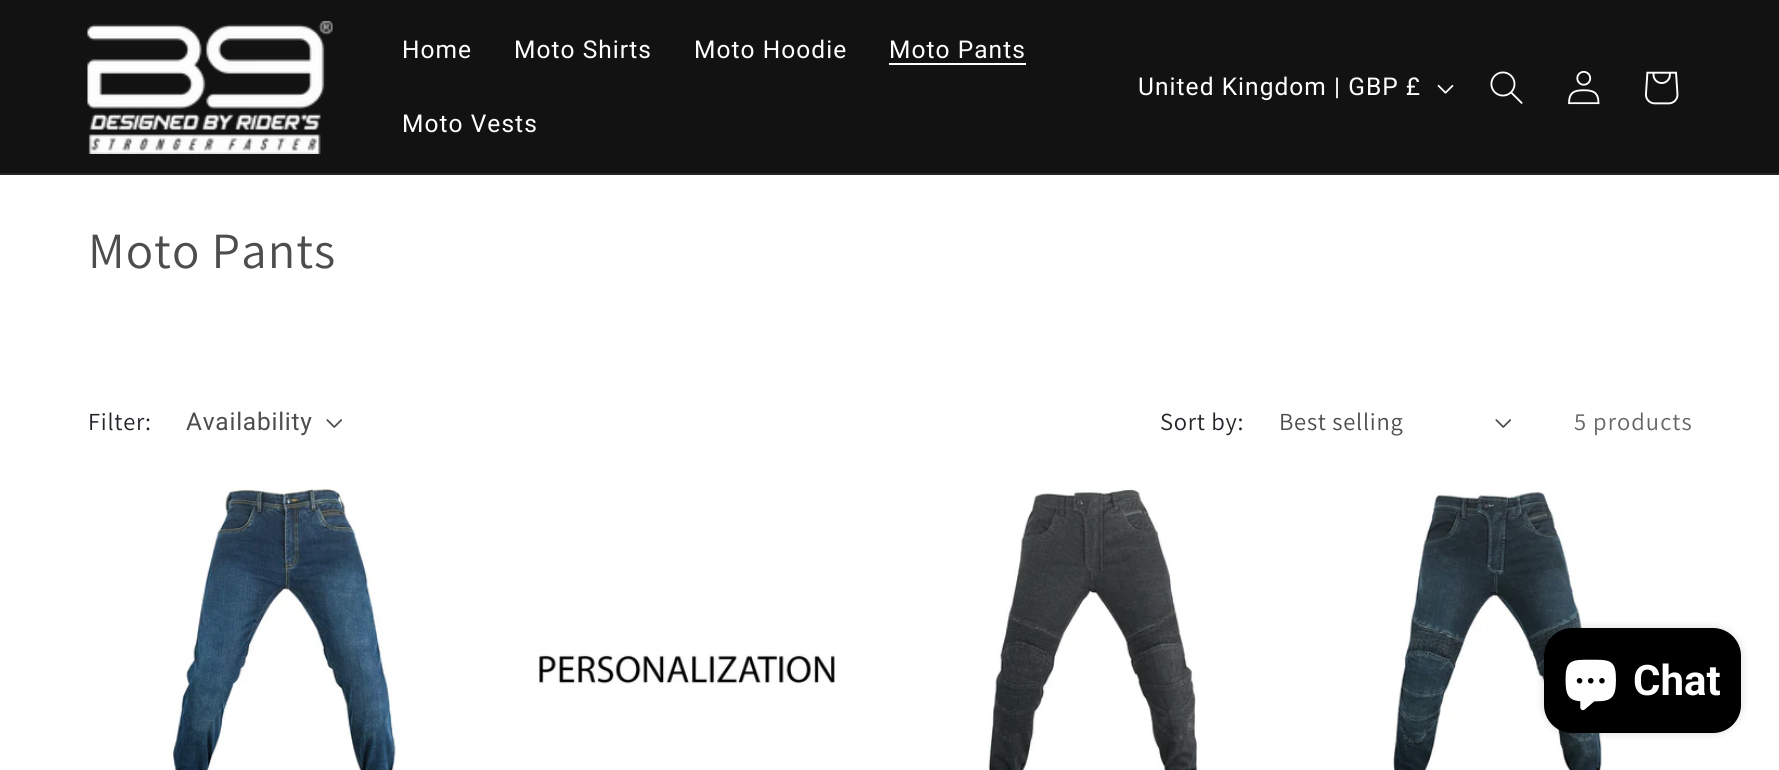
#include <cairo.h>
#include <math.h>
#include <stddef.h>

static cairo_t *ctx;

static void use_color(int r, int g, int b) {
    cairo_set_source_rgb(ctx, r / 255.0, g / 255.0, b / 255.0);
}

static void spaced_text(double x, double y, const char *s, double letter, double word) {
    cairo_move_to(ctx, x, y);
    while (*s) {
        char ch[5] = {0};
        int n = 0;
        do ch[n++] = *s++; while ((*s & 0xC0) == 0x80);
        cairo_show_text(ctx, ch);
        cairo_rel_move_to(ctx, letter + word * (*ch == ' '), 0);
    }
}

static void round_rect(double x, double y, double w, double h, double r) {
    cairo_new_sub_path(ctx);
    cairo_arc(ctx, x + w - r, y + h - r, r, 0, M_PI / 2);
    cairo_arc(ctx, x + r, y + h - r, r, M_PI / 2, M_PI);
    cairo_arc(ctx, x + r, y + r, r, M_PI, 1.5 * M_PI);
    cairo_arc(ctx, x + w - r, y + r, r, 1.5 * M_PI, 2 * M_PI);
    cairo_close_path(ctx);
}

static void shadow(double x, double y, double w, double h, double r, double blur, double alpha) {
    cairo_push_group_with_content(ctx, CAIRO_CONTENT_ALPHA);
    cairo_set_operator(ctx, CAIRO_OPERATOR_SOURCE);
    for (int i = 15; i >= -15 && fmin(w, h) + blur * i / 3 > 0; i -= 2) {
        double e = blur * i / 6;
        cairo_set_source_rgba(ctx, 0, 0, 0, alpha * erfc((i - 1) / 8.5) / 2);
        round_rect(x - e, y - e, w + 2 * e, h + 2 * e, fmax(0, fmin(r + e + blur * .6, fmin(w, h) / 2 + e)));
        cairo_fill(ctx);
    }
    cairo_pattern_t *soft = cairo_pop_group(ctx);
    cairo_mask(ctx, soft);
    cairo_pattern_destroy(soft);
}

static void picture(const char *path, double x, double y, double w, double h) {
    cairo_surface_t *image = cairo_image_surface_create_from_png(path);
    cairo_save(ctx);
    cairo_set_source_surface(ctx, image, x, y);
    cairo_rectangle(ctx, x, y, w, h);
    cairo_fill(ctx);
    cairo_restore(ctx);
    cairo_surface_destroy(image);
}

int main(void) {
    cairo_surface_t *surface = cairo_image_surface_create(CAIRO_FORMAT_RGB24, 1779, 770);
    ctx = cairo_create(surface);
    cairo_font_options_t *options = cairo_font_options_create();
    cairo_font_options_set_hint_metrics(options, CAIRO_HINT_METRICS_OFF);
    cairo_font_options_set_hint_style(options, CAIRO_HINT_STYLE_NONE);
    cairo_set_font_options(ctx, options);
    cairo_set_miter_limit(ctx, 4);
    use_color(255, 255, 255);
    cairo_paint(ctx);
    use_color(18, 18, 18);
    cairo_rectangle(ctx, 0, 0, 1779, 173);
    cairo_fill(ctx);
    use_color(37, 37, 37);
    cairo_rectangle(ctx, 0, 173, 1779, 2);
    cairo_fill(ctx);
    picture("img1.png", 87, 21, 246, 133);
    cairo_select_font_face(ctx, "Roboto", CAIRO_FONT_SLANT_NORMAL, CAIRO_FONT_WEIGHT_NORMAL);
    cairo_set_font_size(ctx, 24.5);
    use_color(255, 255, 255);
    spaced_text(402, 58, "Home", 1.05, 0);
    spaced_text(514, 58, "Moto Shirts", 1.05, 0);
    spaced_text(694, 58, "Moto Hoodie", 1.05, 0);
    spaced_text(889, 58, "Moto Pants", 1.05, 0);
    cairo_rectangle(ctx, 889, 63, 137, 2);
    cairo_fill(ctx);
    spaced_text(402, 132, "Moto Vests", 1.05, 0);
    spaced_text(1138, 95, "United Kingdom | GBP £", 1.05, 0);
    picture("img2.png", 1437, 84, 17, 10);
    picture("img3.png", 1490, 71, 33, 33);
    picture("img4.png", 1568, 70, 32, 35);
    picture("img5.png", 1645, 71, 34, 34);
    cairo_select_font_face(ctx, "Assistant", CAIRO_FONT_SLANT_NORMAL, CAIRO_FONT_WEIGHT_NORMAL);
    cairo_set_font_size(ctx, 50.75);
    use_color(77, 77, 77);
    spaced_text(88, 268, "Moto Pants", 1.05, 0);
    cairo_set_font_size(ctx, 24.5);
    use_color(33, 37, 41);
    spaced_text(88, 430, "Filter:", 0.75, 0);
    cairo_select_font_face(ctx, "Roboto", CAIRO_FONT_SLANT_NORMAL, CAIRO_FONT_WEIGHT_NORMAL);
    use_color(77, 77, 77);
    spaced_text(186, 430, "Availability", 0.75, 0);
    picture("img6.png", 326, 419, 16, 9);
    cairo_select_font_face(ctx, "Assistant", CAIRO_FONT_SLANT_NORMAL, CAIRO_FONT_WEIGHT_NORMAL);
    use_color(33, 37, 41);
    spaced_text(1160, 430, "Sort by:", 0.75, 0);
    use_color(77, 77, 77);
    spaced_text(1279, 430, "Best selling", 0.75, 0);
    picture("img6.png", 1495, 419, 16, 9);
    use_color(100, 102, 105);
    spaced_text(1574, 430, "5 products", 1.05, 0);
    picture("img7.png", 171, 486, 227, 284);
    picture("img8.png", 538, 654, 297, 30);
    picture("img9.png", 988, 489, 209, 281);
    picture("img10.png", 1393, 492, 210, 278);
    use_color(0, 0, 0);
    shadow(1544, 628, 197, 105, 28, 4.5, 0.15);
    use_color(0, 0, 0);
    round_rect(1544, 628, 197, 105, 28);
    cairo_fill(ctx);
    picture("img11.png", 1565, 659, 51, 52);
    cairo_select_font_face(ctx, "Roboto", CAIRO_FONT_SLANT_NORMAL, CAIRO_FONT_WEIGHT_BOLD);
    cairo_set_font_size(ctx, 42);
    use_color(255, 255, 255);
    cairo_move_to(ctx, 1633, 695);
    cairo_show_text(ctx, "Chat");
    cairo_surface_write_to_png(surface, "result.png");
    cairo_font_options_destroy(options);
    cairo_destroy(ctx);
    cairo_surface_destroy(surface);
    return 0;
}
